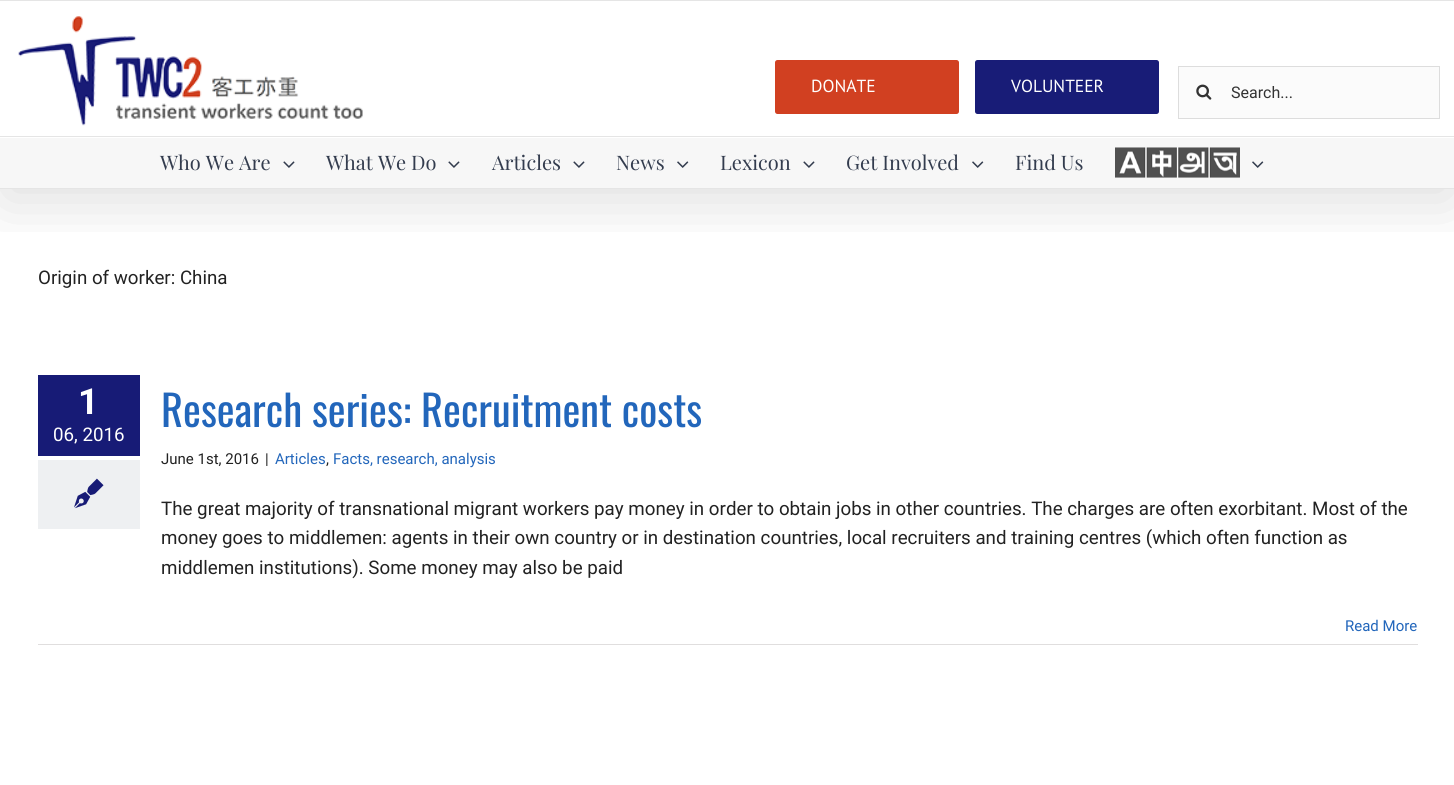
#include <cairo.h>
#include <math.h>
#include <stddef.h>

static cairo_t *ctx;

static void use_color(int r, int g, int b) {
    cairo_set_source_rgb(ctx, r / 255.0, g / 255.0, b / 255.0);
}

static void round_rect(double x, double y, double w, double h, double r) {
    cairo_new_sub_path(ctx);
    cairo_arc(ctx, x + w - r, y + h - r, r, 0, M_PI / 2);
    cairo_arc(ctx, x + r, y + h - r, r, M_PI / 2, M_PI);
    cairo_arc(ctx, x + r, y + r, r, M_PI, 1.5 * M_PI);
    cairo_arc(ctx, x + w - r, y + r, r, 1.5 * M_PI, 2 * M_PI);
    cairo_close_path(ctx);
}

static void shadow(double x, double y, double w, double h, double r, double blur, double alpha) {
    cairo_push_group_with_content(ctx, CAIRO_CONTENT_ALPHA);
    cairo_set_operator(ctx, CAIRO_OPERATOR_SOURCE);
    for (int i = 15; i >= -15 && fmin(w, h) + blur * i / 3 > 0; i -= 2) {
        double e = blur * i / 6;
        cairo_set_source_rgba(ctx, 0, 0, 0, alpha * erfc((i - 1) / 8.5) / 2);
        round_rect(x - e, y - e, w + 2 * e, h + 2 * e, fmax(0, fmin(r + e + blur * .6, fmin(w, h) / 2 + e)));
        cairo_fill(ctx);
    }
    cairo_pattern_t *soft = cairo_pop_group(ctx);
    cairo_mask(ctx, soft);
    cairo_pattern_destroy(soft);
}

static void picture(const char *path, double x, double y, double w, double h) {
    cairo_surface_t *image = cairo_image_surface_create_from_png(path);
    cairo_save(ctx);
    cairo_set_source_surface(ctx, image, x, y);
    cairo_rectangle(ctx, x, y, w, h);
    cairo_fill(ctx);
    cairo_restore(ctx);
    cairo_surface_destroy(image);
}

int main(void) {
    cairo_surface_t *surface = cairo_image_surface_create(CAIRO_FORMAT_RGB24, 1454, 785);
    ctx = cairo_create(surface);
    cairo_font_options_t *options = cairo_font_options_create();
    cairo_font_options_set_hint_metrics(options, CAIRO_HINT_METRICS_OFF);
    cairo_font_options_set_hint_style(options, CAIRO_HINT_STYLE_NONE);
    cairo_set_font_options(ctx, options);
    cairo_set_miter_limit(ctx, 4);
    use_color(255, 255, 255);
    cairo_paint(ctx);
    cairo_save(ctx);
    cairo_rectangle(ctx, 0, 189, 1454, 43);
    cairo_clip(ctx);
    use_color(0, 0, 0);
    shadow(3, 15, 1450, 184, 0, 31, 0.14);
    cairo_restore(ctx);
    use_color(229, 229, 229);
    cairo_rectangle(ctx, 0, 0, 1454, 1);
    cairo_fill(ctx);
    cairo_rectangle(ctx, 0, 136, 1454, 1);
    cairo_fill(ctx);
    picture("img1.png", 18, 16, 345, 110);
    use_color(209, 64, 33);
    round_rect(775, 60, 184, 54, 2.5);
    cairo_fill(ctx);
    cairo_select_font_face(ctx, "PT Sans", CAIRO_FONT_SLANT_NORMAL, CAIRO_FONT_WEIGHT_NORMAL);
    cairo_set_font_size(ctx, 17.5);
    use_color(255, 255, 255);
    cairo_move_to(ctx, 811, 92);
    cairo_show_text(ctx, "DONATE");
    use_color(24, 28, 119);
    round_rect(975, 60, 184, 54, 2.5);
    cairo_fill(ctx);
    use_color(255, 255, 255);
    cairo_move_to(ctx, 1011, 92);
    cairo_show_text(ctx, "VOLUNTEER");
    use_color(251, 251, 251);
    cairo_rectangle(ctx, 1178.5, 66.5, 261, 52);
    cairo_fill_preserve(ctx);
    use_color(221, 221, 221);
    cairo_set_line_width(ctx, 1);
    cairo_stroke(ctx);
    picture("img2.png", 1196, 84, 16, 16);
    cairo_select_font_face(ctx, "Roboto", CAIRO_FONT_SLANT_NORMAL, CAIRO_FONT_WEIGHT_NORMAL);
    cairo_set_font_size(ctx, 16);
    use_color(51, 51, 51);
    cairo_move_to(ctx, 1231, 98);
    cairo_show_text(ctx, "Search...");
    use_color(247, 247, 247);
    cairo_rectangle(ctx, 0, 138, 1454, 50);
    cairo_fill(ctx);
    use_color(229, 229, 229);
    cairo_rectangle(ctx, 0, 188, 1454, 1);
    cairo_fill(ctx);
    cairo_select_font_face(ctx, "Playfair Display", CAIRO_FONT_SLANT_NORMAL, CAIRO_FONT_WEIGHT_NORMAL);
    cairo_set_font_size(ctx, 20);
    use_color(51, 60, 78);
    cairo_move_to(ctx, 160, 170);
    cairo_show_text(ctx, "Who We Are");
    picture("img3.png", 283, 161, 12, 7);
    cairo_move_to(ctx, 326, 170);
    cairo_show_text(ctx, "What We Do");
    picture("img3.png", 448, 161, 12, 7);
    cairo_move_to(ctx, 492, 170);
    cairo_show_text(ctx, "Articles");
    picture("img3.png", 573, 161, 12, 7);
    cairo_move_to(ctx, 616, 170);
    cairo_show_text(ctx, "News");
    picture("img4.png", 677, 161, 12, 7);
    cairo_move_to(ctx, 720, 170);
    cairo_show_text(ctx, "Lexicon");
    picture("img3.png", 803, 161, 12, 7);
    cairo_move_to(ctx, 846, 170);
    cairo_show_text(ctx, "Get Involved");
    picture("img4.png", 972, 161, 12, 7);
    cairo_move_to(ctx, 1015, 170);
    cairo_show_text(ctx, "Find Us");
    picture("img5.png", 1115, 147, 125, 31);
    picture("img4.png", 1252, 161, 12, 7);
    cairo_select_font_face(ctx, "Roboto", CAIRO_FONT_SLANT_NORMAL, CAIRO_FONT_WEIGHT_NORMAL);
    cairo_set_font_size(ctx, 18.75);
    use_color(34, 34, 34);
    cairo_move_to(ctx, 38, 284);
    cairo_show_text(ctx, "Origin of worker: China");
    use_color(23, 27, 118);
    cairo_rectangle(ctx, 38, 375, 102, 81);
    cairo_fill(ctx);
    cairo_select_font_face(ctx, "Roboto", CAIRO_FONT_SLANT_NORMAL, CAIRO_FONT_WEIGHT_BOLD);
    cairo_set_font_size(ctx, 36);
    use_color(255, 255, 255);
    cairo_move_to(ctx, 78, 414);
    cairo_show_text(ctx, "1");
    cairo_select_font_face(ctx, "Roboto", CAIRO_FONT_SLANT_NORMAL, CAIRO_FONT_WEIGHT_NORMAL);
    cairo_set_font_size(ctx, 18.75);
    cairo_move_to(ctx, 53, 441);
    cairo_show_text(ctx, "06, 2016");
    use_color(238, 240, 242);
    cairo_rectangle(ctx, 38, 460, 102, 69);
    cairo_fill(ctx);
    picture("img6.png", 74, 478, 30, 31);
    cairo_select_font_face(ctx, "Oswald", CAIRO_FONT_SLANT_NORMAL, CAIRO_FONT_WEIGHT_NORMAL);
    cairo_set_font_size(ctx, 42.5);
    use_color(34, 102, 187);
    cairo_move_to(ctx, 161, 427);
    cairo_show_text(ctx, "Research series: Recruitment costs");
    cairo_select_font_face(ctx, "Roboto", CAIRO_FONT_SLANT_NORMAL, CAIRO_FONT_WEIGHT_NORMAL);
    cairo_set_font_size(ctx, 15);
    use_color(34, 34, 34);
    cairo_move_to(ctx, 161, 464);
    cairo_show_text(ctx, "June 1st, 2016");
    cairo_move_to(ctx, 265, 464);
    cairo_show_text(ctx, "|");
    use_color(34, 102, 187);
    cairo_move_to(ctx, 275, 464);
    cairo_show_text(ctx, "Articles");
    use_color(34, 34, 34);
    cairo_move_to(ctx, 326, 464);
    cairo_show_text(ctx, ",");
    use_color(34, 102, 187);
    cairo_move_to(ctx, 333, 464);
    cairo_show_text(ctx, "Facts, research, analysis");
    cairo_set_font_size(ctx, 18.75);
    use_color(34, 34, 34);
    cairo_move_to(ctx, 161, 515);
    cairo_show_text(ctx, "The great majority of transnational migrant workers pay money in order to obtain jobs in other countries. The charges are often exorbitant. Most of the");
    cairo_move_to(ctx, 161, 544);
    cairo_show_text(ctx, "money goes to middlemen: agents in their own country or in destination countries, local recruiters and training centres (which often function as");
    cairo_move_to(ctx, 161, 574);
    cairo_show_text(ctx, "middlemen institutions). Some money may also be paid");
    use_color(224, 222, 222);
    cairo_rectangle(ctx, 38, 644, 1380, 1);
    cairo_fill(ctx);
    cairo_set_font_size(ctx, 15);
    use_color(34, 102, 187);
    cairo_move_to(ctx, 1345, 631);
    cairo_show_text(ctx, "Read More");
    cairo_surface_write_to_png(surface, "result.png");
    cairo_font_options_destroy(options);
    cairo_destroy(ctx);
    cairo_surface_destroy(surface);
    return 0;
}
